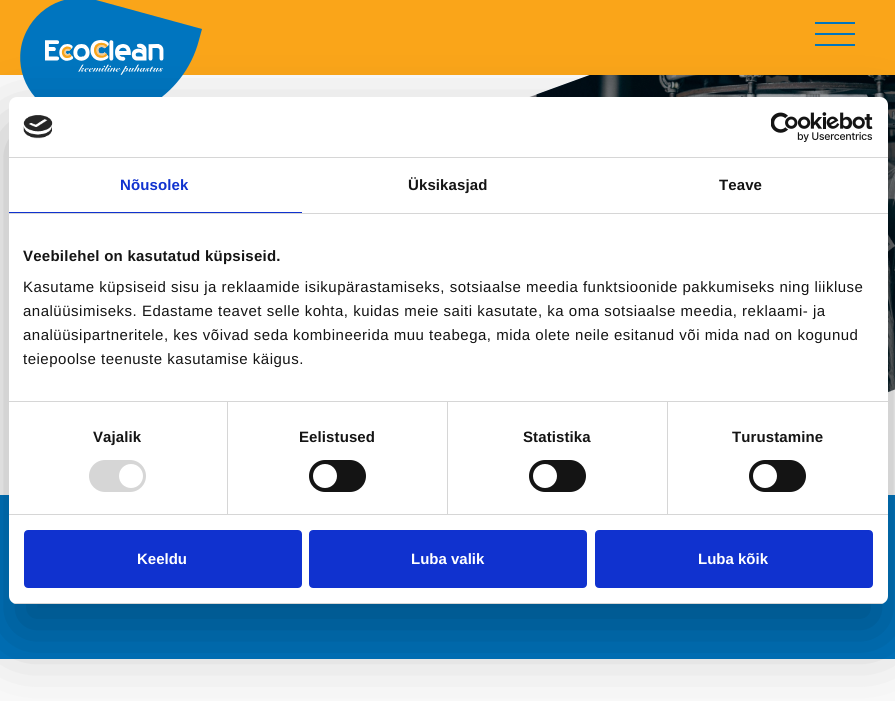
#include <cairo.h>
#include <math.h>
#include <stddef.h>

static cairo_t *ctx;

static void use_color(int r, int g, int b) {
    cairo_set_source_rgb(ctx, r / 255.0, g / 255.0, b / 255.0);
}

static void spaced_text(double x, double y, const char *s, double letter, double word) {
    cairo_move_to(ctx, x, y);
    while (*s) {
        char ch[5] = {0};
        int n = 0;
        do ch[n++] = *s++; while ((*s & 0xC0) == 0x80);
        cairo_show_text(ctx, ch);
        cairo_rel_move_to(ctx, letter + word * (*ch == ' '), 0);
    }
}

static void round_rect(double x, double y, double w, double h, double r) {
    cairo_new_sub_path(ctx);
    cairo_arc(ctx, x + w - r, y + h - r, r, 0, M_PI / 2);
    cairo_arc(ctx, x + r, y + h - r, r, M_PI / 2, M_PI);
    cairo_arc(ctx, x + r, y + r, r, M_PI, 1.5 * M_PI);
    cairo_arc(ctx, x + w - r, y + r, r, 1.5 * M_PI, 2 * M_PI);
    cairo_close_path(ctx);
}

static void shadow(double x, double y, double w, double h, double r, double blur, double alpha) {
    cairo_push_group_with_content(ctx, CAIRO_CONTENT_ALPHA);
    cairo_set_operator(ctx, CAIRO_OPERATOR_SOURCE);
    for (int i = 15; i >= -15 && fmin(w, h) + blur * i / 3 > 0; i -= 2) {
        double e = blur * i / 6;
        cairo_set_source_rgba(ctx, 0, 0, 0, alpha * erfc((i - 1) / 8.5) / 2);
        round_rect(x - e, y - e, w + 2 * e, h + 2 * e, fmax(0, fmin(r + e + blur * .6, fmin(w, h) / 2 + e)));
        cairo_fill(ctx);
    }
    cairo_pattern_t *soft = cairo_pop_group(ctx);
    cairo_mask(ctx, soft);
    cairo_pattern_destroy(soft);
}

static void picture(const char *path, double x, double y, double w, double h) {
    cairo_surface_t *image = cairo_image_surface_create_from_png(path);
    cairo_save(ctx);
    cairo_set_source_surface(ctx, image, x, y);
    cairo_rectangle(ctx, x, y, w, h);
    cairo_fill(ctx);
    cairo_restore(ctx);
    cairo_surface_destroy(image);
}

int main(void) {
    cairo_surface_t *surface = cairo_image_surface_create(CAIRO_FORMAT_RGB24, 895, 701);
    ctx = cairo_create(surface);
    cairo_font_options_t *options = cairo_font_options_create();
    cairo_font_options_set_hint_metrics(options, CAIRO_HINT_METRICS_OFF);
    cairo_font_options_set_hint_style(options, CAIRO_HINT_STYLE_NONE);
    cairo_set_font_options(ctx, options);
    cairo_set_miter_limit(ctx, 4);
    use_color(249, 249, 249);
    cairo_paint(ctx);
    picture("img2.png", 529, 75, 366, 318);
    cairo_set_source_rgba(ctx, 0, 0, 0, 0.3);
    cairo_new_path(ctx);
    cairo_move_to(ctx, 385, 150);
    cairo_line_to(ctx, 404, 201);
    cairo_curve_to(ctx, 471, 377, 665, 468, 843, 408);
    cairo_line_to(ctx, 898, 388);
    cairo_curve_to(ctx, 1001, 346, 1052, 230, 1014, 125);
    cairo_curve_to(ctx, 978, 25, 868, -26, 768, 10);
    cairo_line_to(ctx, 734, 23);
    cairo_close_path(ctx);
    cairo_fill(ctx);
    use_color(250, 165, 25);
    cairo_rectangle(ctx, 0, 0, 895, 75);
    cairo_fill(ctx);
    use_color(0, 117, 191);
    cairo_new_path(ctx);
    cairo_move_to(ctx, 96, 0);
    cairo_line_to(ctx, 202, 29);
    cairo_line_to(ctx, 199, 40);
    cairo_curve_to(ctx, 184, 98, 124, 132, 67, 117);
    cairo_line_to(ctx, 65, 116);
    cairo_curve_to(ctx, 33, 107, 14, 75, 22, 43);
    cairo_curve_to(ctx, 31, 10, 64, -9, 96, 0);
    cairo_close_path(ctx);
    cairo_fill(ctx);
    picture("img1.png", 45, 40, 119, 35);
    cairo_rectangle(ctx, 815, 33, 40, 2);
    cairo_fill(ctx);
    cairo_rectangle(ctx, 815, 22, 40, 2);
    cairo_fill(ctx);
    cairo_rectangle(ctx, 815, 44, 40, 2);
    cairo_fill(ctx);
    cairo_rectangle(ctx, 0, 495, 895, 164);
    cairo_fill(ctx);
    use_color(0, 0, 0);
    shadow(9, 129, 879, 507, 8, 34, 0.3);
    use_color(255, 255, 255);
    round_rect(9, 97, 879, 507, 8);
    cairo_fill(ctx);
    use_color(214, 214, 214);
    cairo_rectangle(ctx, 9, 157, 879, 1);
    cairo_fill(ctx);
    picture("img3.png", 23, 115, 30, 24);
    picture("img4.png", 771, 112, 102, 30);
    cairo_rectangle(ctx, 9, 213, 879, 1);
    cairo_fill(ctx);
    use_color(16, 50, 207);
    cairo_rectangle(ctx, 9, 212, 293, 1);
    cairo_fill(ctx);
    cairo_select_font_face(ctx, "Liberation Sans", CAIRO_FONT_SLANT_NORMAL, CAIRO_FONT_WEIGHT_BOLD);
    cairo_set_font_size(ctx, 15);
    spaced_text(120, 190, "Nõusolek", 0.1, 0);
    use_color(20, 20, 20);
    spaced_text(408, 190, "Üksikasjad", 0.1, 0);
    spaced_text(719, 190, "Teave", 0.1, 0);
    use_color(214, 214, 214);
    cairo_rectangle(ctx, 9, 401, 879, 1);
    cairo_fill(ctx);
    use_color(20, 20, 20);
    spaced_text(23, 261, "Veebilehel on kasutatud küpsiseid.", 0.25, 0);
    cairo_select_font_face(ctx, "Liberation Sans", CAIRO_FONT_SLANT_NORMAL, CAIRO_FONT_WEIGHT_NORMAL);
    spaced_text(23, 292, "Kasutame küpsiseid sisu ja reklaamide isikupärastamiseks, sotsiaalse meedia funktsioonide pakkumiseks ning liikluse", 0.5, 0);
    spaced_text(23, 316, "analüüsimiseks. Edastame teavet selle kohta, kuidas meie saiti kasutate, ka oma sotsiaalse meedia, reklaami- ja", 0.5, 0);
    spaced_text(23, 340, "analüüsipartneritele, kes võivad seda kombineerida muu teabega, mida olete neile esitanud või mida nad on kogunud", 0.5, 0);
    spaced_text(23, 364, "teiepoolse teenuste kasutamise käigus.", 0.5, 0);
    use_color(214, 214, 214);
    cairo_rectangle(ctx, 9, 514, 879, 1);
    cairo_fill(ctx);
    cairo_rectangle(ctx, 227, 402, 1, 112);
    cairo_fill(ctx);
    cairo_select_font_face(ctx, "Liberation Sans", CAIRO_FONT_SLANT_NORMAL, CAIRO_FONT_WEIGHT_BOLD);
    use_color(20, 20, 20);
    spaced_text(93, 442, "Vajalik", 0.1, 0);
    use_color(214, 214, 214);
    round_rect(89, 460, 57, 32, 16);
    cairo_fill(ctx);
    use_color(255, 255, 255);
    cairo_arc(ctx, 131, 476, 12, 0, 2 * M_PI);
    cairo_fill(ctx);
    use_color(214, 214, 214);
    cairo_rectangle(ctx, 447, 402, 1, 112);
    cairo_fill(ctx);
    use_color(20, 20, 20);
    spaced_text(299, 442, "Eelistused", 0.1, 0);
    round_rect(309, 460, 57, 32, 16);
    cairo_fill(ctx);
    use_color(255, 255, 255);
    cairo_arc(ctx, 325, 476, 12, 0, 2 * M_PI);
    cairo_fill(ctx);
    use_color(214, 214, 214);
    cairo_rectangle(ctx, 667, 402, 1, 112);
    cairo_fill(ctx);
    use_color(20, 20, 20);
    spaced_text(523, 442, "Statistika", 0.1, 0);
    round_rect(529, 460, 57, 32, 16);
    cairo_fill(ctx);
    use_color(255, 255, 255);
    cairo_arc(ctx, 545, 476, 12, 0, 2 * M_PI);
    cairo_fill(ctx);
    use_color(20, 20, 20);
    spaced_text(732, 442, "Turustamine", 0.1, 0);
    round_rect(749, 460, 57, 32, 16);
    cairo_fill(ctx);
    use_color(255, 255, 255);
    cairo_arc(ctx, 765, 476, 12, 0, 2 * M_PI);
    cairo_fill(ctx);
    cairo_save(ctx);
    round_rect(9, 97, 879, 507, 8);
    cairo_clip(ctx);
    use_color(214, 214, 214);
    cairo_rectangle(ctx, 9, 603, 879, 1);
    cairo_fill(ctx);
    cairo_restore(ctx);
    use_color(16, 50, 207);
    round_rect(25, 531, 276, 56, 3);
    cairo_fill_preserve(ctx);
    cairo_stroke(ctx);
    use_color(255, 255, 255);
    cairo_move_to(ctx, 137, 564);
    cairo_show_text(ctx, "Keeldu");
    use_color(16, 50, 207);
    round_rect(310, 531, 276, 56, 3);
    cairo_fill_preserve(ctx);
    cairo_stroke(ctx);
    use_color(255, 255, 255);
    cairo_move_to(ctx, 411, 564);
    cairo_show_text(ctx, "Luba valik");
    use_color(16, 50, 207);
    round_rect(596, 531, 276, 56, 3);
    cairo_fill_preserve(ctx);
    cairo_stroke(ctx);
    use_color(255, 255, 255);
    cairo_move_to(ctx, 698, 564);
    cairo_show_text(ctx, "Luba kõik");
    cairo_surface_write_to_png(surface, "result.png");
    cairo_font_options_destroy(options);
    cairo_destroy(ctx);
    cairo_surface_destroy(surface);
    return 0;
}
